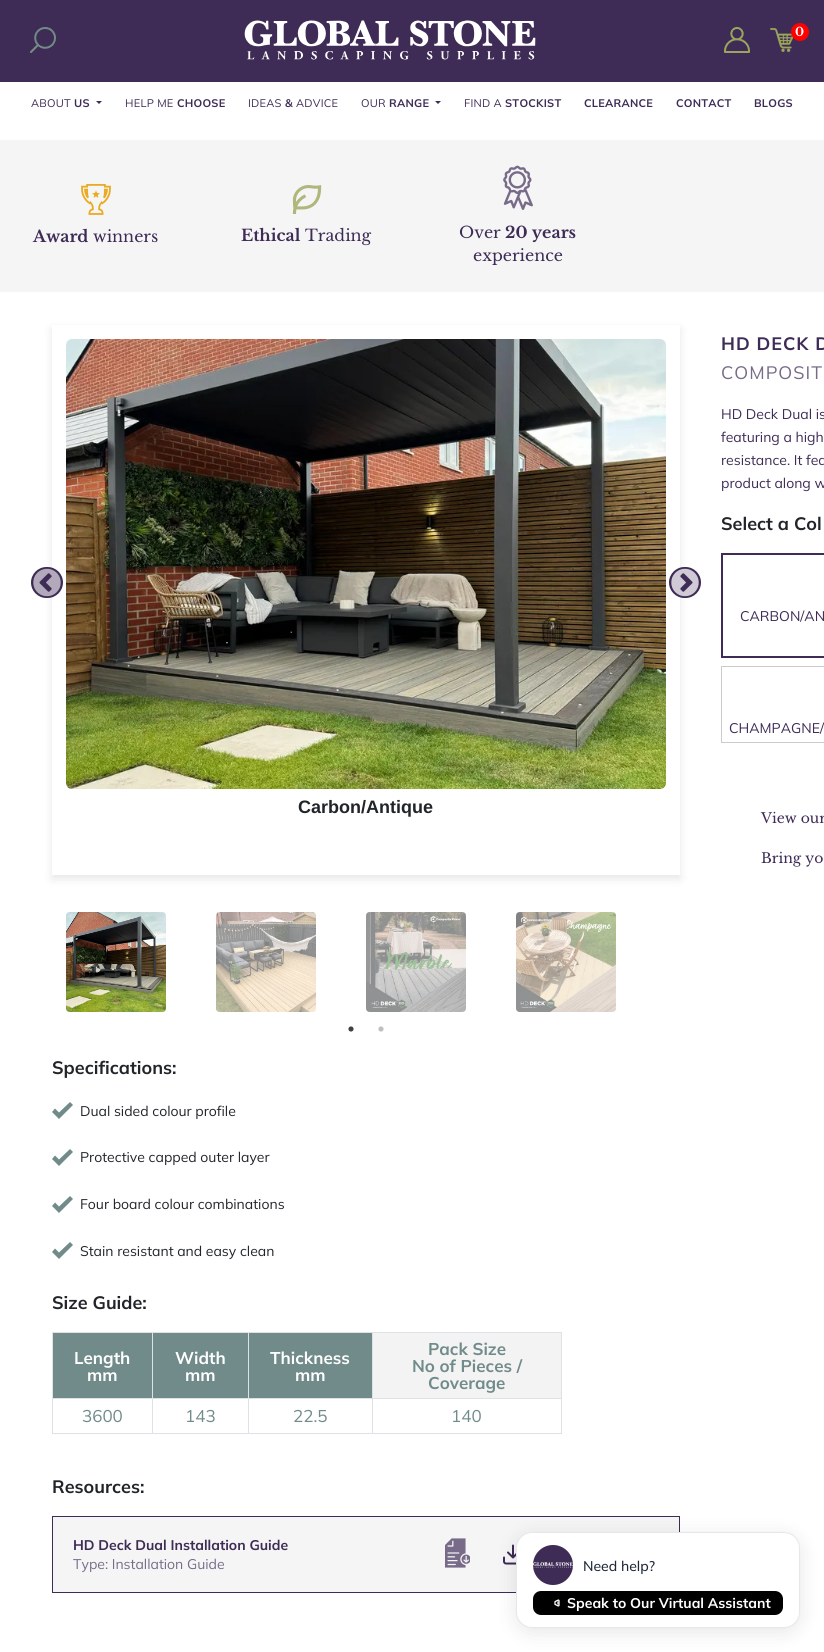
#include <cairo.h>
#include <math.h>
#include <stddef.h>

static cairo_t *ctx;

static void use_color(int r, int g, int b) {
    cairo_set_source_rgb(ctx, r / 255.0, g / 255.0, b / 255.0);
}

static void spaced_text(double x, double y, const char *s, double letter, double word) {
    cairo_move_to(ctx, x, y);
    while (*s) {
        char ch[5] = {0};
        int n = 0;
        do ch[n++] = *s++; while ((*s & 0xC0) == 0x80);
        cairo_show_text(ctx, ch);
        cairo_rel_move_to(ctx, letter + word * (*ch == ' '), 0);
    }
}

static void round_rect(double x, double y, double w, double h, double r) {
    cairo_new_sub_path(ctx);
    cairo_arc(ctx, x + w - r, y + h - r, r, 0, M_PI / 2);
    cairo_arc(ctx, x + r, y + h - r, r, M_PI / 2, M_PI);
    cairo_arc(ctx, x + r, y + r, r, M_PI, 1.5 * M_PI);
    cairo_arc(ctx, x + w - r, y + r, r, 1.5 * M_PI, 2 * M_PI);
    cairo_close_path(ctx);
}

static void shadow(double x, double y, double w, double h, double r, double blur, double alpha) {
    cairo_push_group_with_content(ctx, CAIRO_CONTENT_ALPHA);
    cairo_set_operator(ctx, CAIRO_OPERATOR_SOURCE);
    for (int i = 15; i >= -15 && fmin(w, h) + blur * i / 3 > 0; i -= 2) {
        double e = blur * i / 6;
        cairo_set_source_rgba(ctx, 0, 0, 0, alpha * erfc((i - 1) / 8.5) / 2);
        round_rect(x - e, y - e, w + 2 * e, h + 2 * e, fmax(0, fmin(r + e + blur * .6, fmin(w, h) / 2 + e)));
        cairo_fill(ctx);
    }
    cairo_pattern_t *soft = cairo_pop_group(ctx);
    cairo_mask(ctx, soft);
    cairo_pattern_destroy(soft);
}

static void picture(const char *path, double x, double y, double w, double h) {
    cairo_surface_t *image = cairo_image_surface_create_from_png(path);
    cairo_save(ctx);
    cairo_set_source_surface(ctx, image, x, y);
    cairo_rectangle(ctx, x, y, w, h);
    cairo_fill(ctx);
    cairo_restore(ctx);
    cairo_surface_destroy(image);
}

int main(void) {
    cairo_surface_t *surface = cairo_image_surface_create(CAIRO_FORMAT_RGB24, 824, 1652);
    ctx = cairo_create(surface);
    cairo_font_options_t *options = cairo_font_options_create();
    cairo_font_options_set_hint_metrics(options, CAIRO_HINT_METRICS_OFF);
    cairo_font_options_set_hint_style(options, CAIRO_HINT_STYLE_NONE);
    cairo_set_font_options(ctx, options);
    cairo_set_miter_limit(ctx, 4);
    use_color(255, 255, 255);
    cairo_paint(ctx);
    use_color(62, 43, 86);
    cairo_rectangle(ctx, 0, 0, 824, 82);
    cairo_fill(ctx);
    picture("img1.png", 30, 27, 26, 26);
    picture("img2.png", 244, 20, 292, 40);
    picture("img3.png", 724, 27, 26, 26);
    picture("img4.png", 770, 28, 24, 24);
    use_color(255, 0, 0);
    cairo_arc(ctx, 800, 32, 9, 0, 2 * M_PI);
    cairo_fill(ctx);
    cairo_select_font_face(ctx, "Libre Baskerville", CAIRO_FONT_SLANT_NORMAL, CAIRO_FONT_WEIGHT_BOLD);
    cairo_set_font_size(ctx, 12);
    use_color(255, 255, 255);
    cairo_move_to(ctx, 795, 36);
    cairo_show_text(ctx, "0");
    cairo_select_font_face(ctx, "Mulish", CAIRO_FONT_SLANT_NORMAL, CAIRO_FONT_WEIGHT_NORMAL);
    cairo_set_font_size(ctx, 11);
    use_color(62, 43, 86);
    spaced_text(31, 107, "ABOUT", 0.25, 0);
    cairo_select_font_face(ctx, "Mulish", CAIRO_FONT_SLANT_NORMAL, CAIRO_FONT_WEIGHT_BOLD);
    spaced_text(74, 107, "US", 0.25, 0);
    cairo_new_path(ctx);
    cairo_move_to(ctx, 96, 101);
    cairo_line_to(ctx, 102, 101);
    cairo_line_to(ctx, 99, 104);
    cairo_close_path(ctx);
    cairo_fill(ctx);
    cairo_select_font_face(ctx, "Mulish", CAIRO_FONT_SLANT_NORMAL, CAIRO_FONT_WEIGHT_NORMAL);
    spaced_text(125, 107, "HELP ME", 0.25, 0);
    cairo_select_font_face(ctx, "Mulish", CAIRO_FONT_SLANT_NORMAL, CAIRO_FONT_WEIGHT_BOLD);
    spaced_text(177, 107, "CHOOSE", 0.25, 0);
    cairo_select_font_face(ctx, "Mulish", CAIRO_FONT_SLANT_NORMAL, CAIRO_FONT_WEIGHT_NORMAL);
    spaced_text(248, 107, "IDEAS", 0.25, 0);
    cairo_select_font_face(ctx, "Mulish", CAIRO_FONT_SLANT_NORMAL, CAIRO_FONT_WEIGHT_BOLD);
    spaced_text(285, 107, "&", 0.25, 0);
    cairo_select_font_face(ctx, "Mulish", CAIRO_FONT_SLANT_NORMAL, CAIRO_FONT_WEIGHT_NORMAL);
    spaced_text(296, 107, "ADVICE", 0.25, 0);
    spaced_text(361, 107, "OUR", 0.25, 0);
    cairo_select_font_face(ctx, "Mulish", CAIRO_FONT_SLANT_NORMAL, CAIRO_FONT_WEIGHT_BOLD);
    spaced_text(389, 107, "RANGE", 0.25, 0);
    cairo_new_path(ctx);
    cairo_move_to(ctx, 435, 101);
    cairo_line_to(ctx, 441, 101);
    cairo_line_to(ctx, 438, 104);
    cairo_close_path(ctx);
    cairo_fill(ctx);
    cairo_select_font_face(ctx, "Mulish", CAIRO_FONT_SLANT_NORMAL, CAIRO_FONT_WEIGHT_NORMAL);
    spaced_text(464, 107, "FIND A", 0.25, 0);
    cairo_select_font_face(ctx, "Mulish", CAIRO_FONT_SLANT_NORMAL, CAIRO_FONT_WEIGHT_BOLD);
    spaced_text(505, 107, "STOCKIST", 0.25, 0);
    spaced_text(584, 107, "CLEARANCE", 0.25, 0);
    spaced_text(676, 107, "CONTACT", 0.25, 0);
    spaced_text(754, 107, "BLOGS", 0.25, 0);
    use_color(245, 245, 245);
    cairo_rectangle(ctx, 0, 140, 824, 152);
    cairo_fill(ctx);
    picture("img5.png", 81, 184, 30, 31);
    cairo_select_font_face(ctx, "Libre Baskerville", CAIRO_FONT_SLANT_NORMAL, CAIRO_FONT_WEIGHT_BOLD);
    cairo_set_font_size(ctx, 16);
    use_color(62, 43, 86);
    cairo_move_to(ctx, 33, 242);
    cairo_show_text(ctx, "Award");
    cairo_select_font_face(ctx, "Libre Baskerville", CAIRO_FONT_SLANT_NORMAL, CAIRO_FONT_WEIGHT_NORMAL);
    cairo_move_to(ctx, 93, 242);
    cairo_show_text(ctx, "winners");
    picture("img6.png", 292, 185, 30, 29);
    cairo_select_font_face(ctx, "Libre Baskerville", CAIRO_FONT_SLANT_NORMAL, CAIRO_FONT_WEIGHT_BOLD);
    cairo_move_to(ctx, 241, 241);
    cairo_show_text(ctx, "Ethical");
    cairo_select_font_face(ctx, "Libre Baskerville", CAIRO_FONT_SLANT_NORMAL, CAIRO_FONT_WEIGHT_NORMAL);
    cairo_move_to(ctx, 305, 241);
    cairo_show_text(ctx, "Trading");
    picture("img7.png", 503, 165, 30, 45);
    cairo_move_to(ctx, 459, 238);
    cairo_show_text(ctx, "Over");
    cairo_select_font_face(ctx, "Libre Baskerville", CAIRO_FONT_SLANT_NORMAL, CAIRO_FONT_WEIGHT_BOLD);
    cairo_move_to(ctx, 505, 238);
    cairo_show_text(ctx, "20 years");
    cairo_select_font_face(ctx, "Libre Baskerville", CAIRO_FONT_SLANT_NORMAL, CAIRO_FONT_WEIGHT_NORMAL);
    cairo_move_to(ctx, 473, 261);
    cairo_show_text(ctx, "experience");
    cairo_select_font_face(ctx, "Mulish", CAIRO_FONT_SLANT_NORMAL, CAIRO_FONT_WEIGHT_BOLD);
    cairo_set_font_size(ctx, 18);
    spaced_text(721, 350, "HD DECK D", 1, 0);
    cairo_select_font_face(ctx, "Mulish", CAIRO_FONT_SLANT_NORMAL, CAIRO_FONT_WEIGHT_NORMAL);
    use_color(120, 107, 137);
    spaced_text(721, 379, "COMPOSIT", 1, 0);
    cairo_set_font_size(ctx, 14);
    use_color(62, 43, 86);
    cairo_move_to(ctx, 721, 419);
    cairo_show_text(ctx, "HD Deck Dual is");
    cairo_move_to(ctx, 721, 442);
    cairo_show_text(ctx, "featuring a high");
    cairo_move_to(ctx, 721, 465);
    cairo_show_text(ctx, "resistance. It fea");
    cairo_move_to(ctx, 721, 488);
    cairo_show_text(ctx, "product along w");
    cairo_select_font_face(ctx, "Mulish", CAIRO_FONT_SLANT_NORMAL, CAIRO_FONT_WEIGHT_BOLD);
    cairo_set_font_size(ctx, 18);
    use_color(33, 37, 41);
    cairo_move_to(ctx, 721, 530);
    cairo_show_text(ctx, "Select a Col");
    cairo_rectangle(ctx, 722, 554, 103, 103);
    use_color(62, 43, 86);
    cairo_stroke(ctx);
    cairo_select_font_face(ctx, "Mulish", CAIRO_FONT_SLANT_NORMAL, CAIRO_FONT_WEIGHT_NORMAL);
    cairo_set_font_size(ctx, 14);
    cairo_move_to(ctx, 740, 621);
    cairo_show_text(ctx, "CARBON/AN");
    cairo_rectangle(ctx, 721.5, 666.5, 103, 76);
    use_color(204, 204, 204);
    cairo_set_line_width(ctx, 1);
    cairo_stroke(ctx);
    use_color(62, 43, 86);
    cairo_move_to(ctx, 729, 733);
    cairo_show_text(ctx, "CHAMPAGNE/");
    cairo_select_font_face(ctx, "Libre Baskerville", CAIRO_FONT_SLANT_NORMAL, CAIRO_FONT_WEIGHT_NORMAL);
    cairo_move_to(ctx, 761, 823);
    cairo_show_text(ctx, "View our");
    cairo_move_to(ctx, 761, 863);
    cairo_show_text(ctx, "Bring yo");
    cairo_save(ctx);
    cairo_set_fill_rule(ctx, CAIRO_FILL_RULE_EVEN_ODD);
    cairo_new_path(ctx);
    cairo_move_to(ctx, 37, 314);
    cairo_line_to(ctx, 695, 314);
    cairo_line_to(ctx, 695, 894);
    cairo_line_to(ctx, 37, 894);
    cairo_close_path(ctx);
    cairo_move_to(ctx, 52, 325);
    cairo_line_to(ctx, 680, 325);
    cairo_line_to(ctx, 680, 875);
    cairo_line_to(ctx, 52, 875);
    cairo_close_path(ctx);
    cairo_clip(ctx);
    use_color(0, 0, 0);
    shadow(52, 329, 628, 550, 0, 4.5, 0.1);
    cairo_restore(ctx);
    round_rect(31, 567, 32, 31, 15.5);
    cairo_fill(ctx);
    picture("img8.png", 33, 568, 28, 29);
    round_rect(669, 567, 32, 31, 15.5);
    cairo_fill(ctx);
    picture("img9.png", 671, 568, 28, 29);
    picture("img10.png", 66, 339, 600, 450);
    cairo_select_font_face(ctx, "Liberation Sans", CAIRO_FONT_SLANT_NORMAL, CAIRO_FONT_WEIGHT_BOLD);
    cairo_set_font_size(ctx, 18);
    use_color(33, 37, 41);
    cairo_move_to(ctx, 298, 813);
    cairo_show_text(ctx, "Carbon/Antique");
    picture("img11.png", 66, 912, 100, 100);
    picture("img12.png", 216, 912, 100, 100);
    picture("img13.png", 366, 912, 100, 100);
    picture("img14.png", 516, 912, 100, 100);
    picture("img15.png", 348, 1026, 6, 6);
    picture("img16.png", 378, 1026, 6, 6);
    cairo_select_font_face(ctx, "Mulish", CAIRO_FONT_SLANT_NORMAL, CAIRO_FONT_WEIGHT_BOLD);
    cairo_move_to(ctx, 52, 1074);
    cairo_show_text(ctx, "Specifications:");
    use_color(112, 139, 138);
    cairo_new_path(ctx);
    cairo_move_to(ctx, 70, 1102);
    cairo_line_to(ctx, 59, 1112.5);
    cairo_line_to(ctx, 55, 1108.5);
    cairo_line_to(ctx, 52, 1112);
    cairo_line_to(ctx, 59, 1119);
    cairo_line_to(ctx, 73, 1105);
    cairo_close_path(ctx);
    cairo_fill(ctx);
    cairo_select_font_face(ctx, "Mulish", CAIRO_FONT_SLANT_NORMAL, CAIRO_FONT_WEIGHT_NORMAL);
    cairo_set_font_size(ctx, 14);
    use_color(33, 37, 41);
    cairo_move_to(ctx, 80, 1116);
    cairo_show_text(ctx, "Dual sided colour profile");
    use_color(112, 139, 138);
    cairo_new_path(ctx);
    cairo_move_to(ctx, 70, 1149);
    cairo_line_to(ctx, 59, 1159.5);
    cairo_line_to(ctx, 55, 1155.5);
    cairo_line_to(ctx, 52, 1159);
    cairo_line_to(ctx, 59, 1166);
    cairo_line_to(ctx, 73, 1152);
    cairo_close_path(ctx);
    cairo_fill(ctx);
    use_color(33, 37, 41);
    cairo_move_to(ctx, 80, 1162);
    cairo_show_text(ctx, "Protective capped outer layer");
    use_color(112, 139, 138);
    cairo_new_path(ctx);
    cairo_move_to(ctx, 70, 1196);
    cairo_line_to(ctx, 59, 1206.5);
    cairo_line_to(ctx, 55, 1202.5);
    cairo_line_to(ctx, 52, 1206);
    cairo_line_to(ctx, 59, 1213);
    cairo_line_to(ctx, 73, 1199);
    cairo_close_path(ctx);
    cairo_fill(ctx);
    use_color(33, 37, 41);
    cairo_move_to(ctx, 80, 1209);
    cairo_show_text(ctx, "Four board colour combinations");
    use_color(112, 139, 138);
    cairo_new_path(ctx);
    cairo_move_to(ctx, 70, 1242);
    cairo_line_to(ctx, 59, 1252.5);
    cairo_line_to(ctx, 55, 1248.5);
    cairo_line_to(ctx, 52, 1252);
    cairo_line_to(ctx, 59, 1259);
    cairo_line_to(ctx, 73, 1245);
    cairo_close_path(ctx);
    cairo_fill(ctx);
    use_color(33, 37, 41);
    cairo_move_to(ctx, 80, 1256);
    cairo_show_text(ctx, "Stain resistant and easy clean");
    cairo_select_font_face(ctx, "Mulish", CAIRO_FONT_SLANT_NORMAL, CAIRO_FONT_WEIGHT_BOLD);
    cairo_set_font_size(ctx, 18);
    cairo_move_to(ctx, 52, 1309);
    cairo_show_text(ctx, "Size Guide:");
    use_color(222, 226, 230);
    cairo_rectangle(ctx, 52, 1332, 510, 1);
    cairo_fill(ctx);
    cairo_rectangle(ctx, 561, 1332, 1, 66);
    cairo_fill(ctx);
    cairo_rectangle(ctx, 52, 1332, 1, 102);
    cairo_fill(ctx);
    use_color(112, 139, 138);
    cairo_rectangle(ctx, 53, 1333, 99, 65);
    cairo_fill(ctx);
    cairo_set_font_size(ctx, 17);
    use_color(255, 255, 255);
    cairo_move_to(ctx, 74, 1364);
    cairo_show_text(ctx, "Length");
    cairo_move_to(ctx, 87, 1381);
    cairo_show_text(ctx, "mm");
    use_color(112, 139, 138);
    cairo_rectangle(ctx, 153, 1333, 95, 65);
    cairo_fill(ctx);
    use_color(222, 226, 230);
    cairo_rectangle(ctx, 372, 1398, 190, 1);
    cairo_fill(ctx);
    cairo_rectangle(ctx, 561, 1398, 1, 36);
    cairo_fill(ctx);
    cairo_rectangle(ctx, 372, 1433, 190, 1);
    cairo_fill(ctx);
    cairo_rectangle(ctx, 372, 1398, 1, 36);
    cairo_fill(ctx);
    cairo_rectangle(ctx, 248, 1398, 125, 1);
    cairo_fill(ctx);
    cairo_rectangle(ctx, 248, 1433, 125, 1);
    cairo_fill(ctx);
    cairo_rectangle(ctx, 248, 1398, 1, 36);
    cairo_fill(ctx);
    cairo_rectangle(ctx, 152, 1398, 97, 1);
    cairo_fill(ctx);
    cairo_rectangle(ctx, 152, 1433, 97, 1);
    cairo_fill(ctx);
    cairo_rectangle(ctx, 152, 1398, 1, 36);
    cairo_fill(ctx);
    cairo_rectangle(ctx, 52, 1398, 101, 1);
    cairo_fill(ctx);
    cairo_rectangle(ctx, 152, 1332, 1, 67);
    cairo_fill(ctx);
    use_color(255, 255, 255);
    cairo_move_to(ctx, 175, 1364);
    cairo_show_text(ctx, "Width");
    cairo_move_to(ctx, 185, 1381);
    cairo_show_text(ctx, "mm");
    use_color(112, 139, 138);
    cairo_rectangle(ctx, 249, 1333, 123, 65);
    cairo_fill(ctx);
    use_color(222, 226, 230);
    cairo_rectangle(ctx, 248, 1332, 1, 67);
    cairo_fill(ctx);
    use_color(255, 255, 255);
    cairo_move_to(ctx, 270, 1364);
    cairo_show_text(ctx, "Thickness");
    cairo_move_to(ctx, 295, 1381);
    cairo_show_text(ctx, "mm");
    use_color(243, 243, 243);
    cairo_rectangle(ctx, 373, 1333, 188, 65);
    cairo_fill(ctx);
    use_color(222, 226, 230);
    cairo_rectangle(ctx, 372, 1332, 1, 67);
    cairo_fill(ctx);
    use_color(112, 139, 138);
    cairo_move_to(ctx, 428, 1355);
    cairo_show_text(ctx, "Pack Size");
    cairo_move_to(ctx, 412, 1372);
    cairo_show_text(ctx, "No of Pieces /");
    cairo_move_to(ctx, 428, 1389);
    cairo_show_text(ctx, "Coverage");
    use_color(222, 226, 230);
    cairo_rectangle(ctx, 52, 1433, 101, 1);
    cairo_fill(ctx);
    cairo_select_font_face(ctx, "Mulish", CAIRO_FONT_SLANT_NORMAL, CAIRO_FONT_WEIGHT_NORMAL);
    use_color(112, 139, 138);
    cairo_move_to(ctx, 82, 1422);
    cairo_show_text(ctx, "3600");
    cairo_move_to(ctx, 185, 1422);
    cairo_show_text(ctx, "143");
    cairo_move_to(ctx, 293, 1422);
    cairo_show_text(ctx, "22.5");
    cairo_move_to(ctx, 451, 1422);
    cairo_show_text(ctx, "140");
    cairo_select_font_face(ctx, "Mulish", CAIRO_FONT_SLANT_NORMAL, CAIRO_FONT_WEIGHT_BOLD);
    cairo_set_font_size(ctx, 18);
    use_color(33, 37, 41);
    cairo_move_to(ctx, 52, 1493);
    cairo_show_text(ctx, "Resources:");
    use_color(245, 245, 245);
    cairo_rectangle(ctx, 52.5, 1516.5, 627, 76);
    cairo_fill_preserve(ctx);
    use_color(62, 43, 86);
    cairo_stroke(ctx);
    cairo_set_font_size(ctx, 14);
    cairo_move_to(ctx, 73, 1550);
    cairo_show_text(ctx, "HD Deck Dual Installation Guide");
    cairo_select_font_face(ctx, "Mulish", CAIRO_FONT_SLANT_NORMAL, CAIRO_FONT_WEIGHT_NORMAL);
    use_color(120, 107, 137);
    cairo_move_to(ctx, 73, 1569);
    cairo_show_text(ctx, "Type: Installation Guide");
    picture("img17.png", 445, 1538, 25, 30);
    picture("img18.png", 503, 1544, 13, 21);
    use_color(0, 0, 0);
    shadow(516, 1536, 284, 96, 16, 10, 0.1);
    use_color(255, 255, 255);
    round_rect(516.5, 1532.5, 283, 95, 15.5);
    cairo_fill_preserve(ctx);
    use_color(229, 231, 235);
    cairo_stroke(ctx);
    use_color(62, 43, 86);
    cairo_arc(ctx, 553, 1565, 20, 0, 2 * M_PI);
    cairo_fill(ctx);
    picture("img19.png", 533, 1562, 40, 6);
    cairo_select_font_face(ctx, "Mulish Medium", CAIRO_FONT_SLANT_NORMAL, CAIRO_FONT_WEIGHT_NORMAL);
    use_color(31, 41, 55);
    cairo_move_to(ctx, 583, 1571);
    cairo_show_text(ctx, "Need help?");
    use_color(0, 0, 0);
    round_rect(533, 1591, 250, 24, 8);
    cairo_fill(ctx);
    picture("img20.png", 554, 1599, 6, 8);
    cairo_select_font_face(ctx, "Mulish", CAIRO_FONT_SLANT_NORMAL, CAIRO_FONT_WEIGHT_BOLD);
    use_color(255, 255, 255);
    cairo_move_to(ctx, 567, 1608);
    cairo_show_text(ctx, "Speak to Our Virtual Assistant");
    cairo_surface_write_to_png(surface, "result.png");
    cairo_font_options_destroy(options);
    cairo_destroy(ctx);
    cairo_surface_destroy(surface);
    return 0;
}
